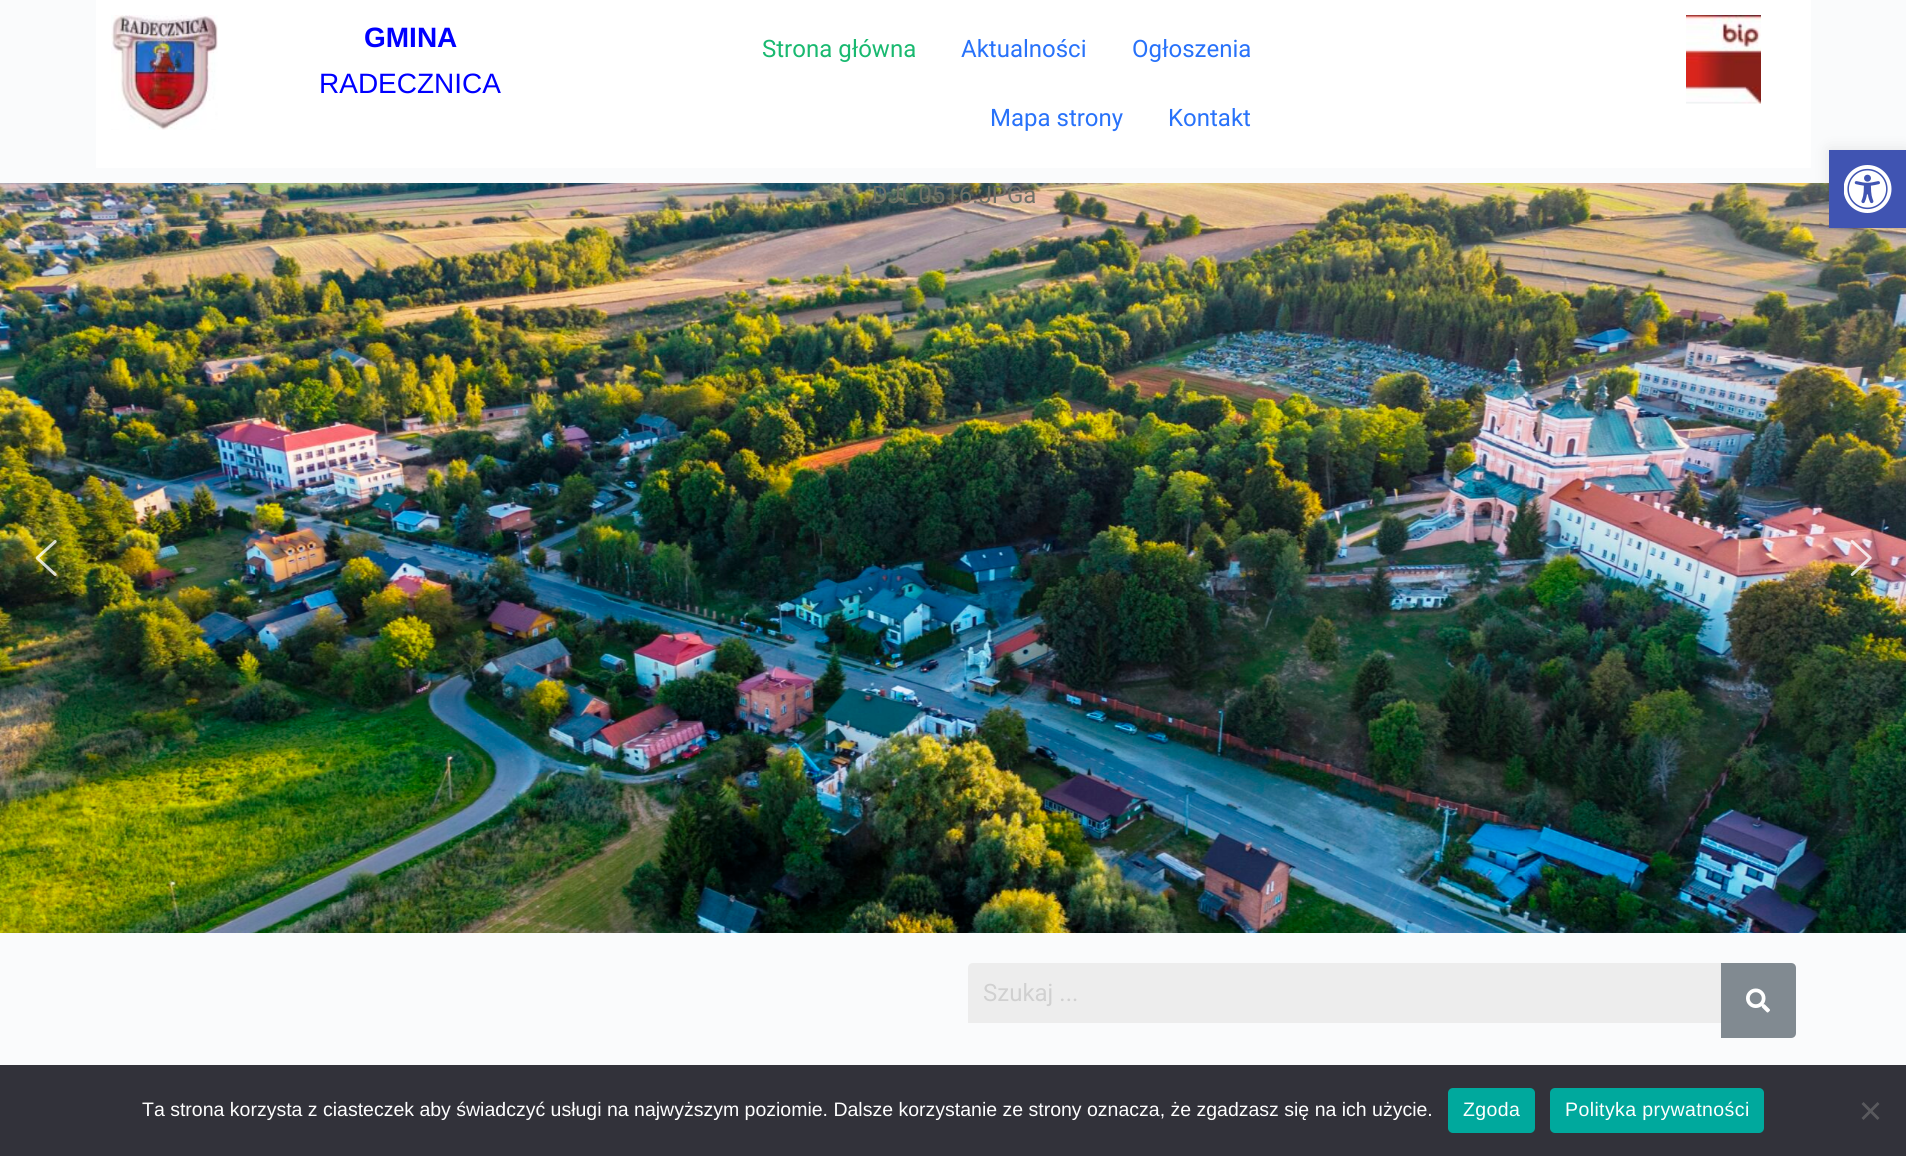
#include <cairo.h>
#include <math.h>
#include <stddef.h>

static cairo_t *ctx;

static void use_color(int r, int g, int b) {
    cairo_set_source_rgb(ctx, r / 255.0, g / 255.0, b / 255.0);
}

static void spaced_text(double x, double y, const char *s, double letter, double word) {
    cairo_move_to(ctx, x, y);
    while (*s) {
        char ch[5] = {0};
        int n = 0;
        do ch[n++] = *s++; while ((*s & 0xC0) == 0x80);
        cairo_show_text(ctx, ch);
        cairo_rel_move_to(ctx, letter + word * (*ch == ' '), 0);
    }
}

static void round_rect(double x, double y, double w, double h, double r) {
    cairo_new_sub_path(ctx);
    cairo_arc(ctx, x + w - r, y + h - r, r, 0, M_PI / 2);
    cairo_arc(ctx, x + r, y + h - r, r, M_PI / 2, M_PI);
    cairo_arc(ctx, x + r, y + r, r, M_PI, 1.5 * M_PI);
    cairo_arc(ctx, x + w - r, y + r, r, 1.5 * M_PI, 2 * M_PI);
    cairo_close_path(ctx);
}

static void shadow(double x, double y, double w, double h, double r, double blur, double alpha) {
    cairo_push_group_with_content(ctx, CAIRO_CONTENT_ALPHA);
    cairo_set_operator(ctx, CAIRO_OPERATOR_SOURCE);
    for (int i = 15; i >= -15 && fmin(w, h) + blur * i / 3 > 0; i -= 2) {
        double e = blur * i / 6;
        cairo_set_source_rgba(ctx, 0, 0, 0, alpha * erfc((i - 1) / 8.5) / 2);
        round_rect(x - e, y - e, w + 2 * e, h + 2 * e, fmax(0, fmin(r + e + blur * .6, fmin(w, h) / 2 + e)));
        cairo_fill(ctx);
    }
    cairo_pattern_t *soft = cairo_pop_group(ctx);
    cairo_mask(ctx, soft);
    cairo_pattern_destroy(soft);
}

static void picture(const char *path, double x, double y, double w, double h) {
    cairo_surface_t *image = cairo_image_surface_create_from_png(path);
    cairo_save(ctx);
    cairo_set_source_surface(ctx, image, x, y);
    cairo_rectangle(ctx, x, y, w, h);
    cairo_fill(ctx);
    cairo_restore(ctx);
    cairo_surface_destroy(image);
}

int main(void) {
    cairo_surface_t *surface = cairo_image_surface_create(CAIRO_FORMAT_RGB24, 1906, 1156);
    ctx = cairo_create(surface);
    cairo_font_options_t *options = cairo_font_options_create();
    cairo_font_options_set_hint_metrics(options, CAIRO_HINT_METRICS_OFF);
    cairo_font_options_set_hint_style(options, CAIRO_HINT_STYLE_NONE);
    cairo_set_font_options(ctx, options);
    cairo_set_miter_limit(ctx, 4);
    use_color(250, 251, 252);
    cairo_paint(ctx);
    use_color(255, 255, 255);
    cairo_rectangle(ctx, 96, 0, 1715, 168);
    cairo_fill(ctx);
    picture("img1.png", 111, 15, 107, 115);
    cairo_select_font_face(ctx, "Liberation Sans", CAIRO_FONT_SLANT_NORMAL, CAIRO_FONT_WEIGHT_BOLD);
    cairo_set_font_size(ctx, 28);
    use_color(0, 0, 255);
    cairo_move_to(ctx, 364, 47);
    cairo_show_text(ctx, "GMINA");
    cairo_select_font_face(ctx, "Liberation Sans", CAIRO_FONT_SLANT_NORMAL, CAIRO_FONT_WEIGHT_NORMAL);
    cairo_move_to(ctx, 319, 93);
    cairo_show_text(ctx, "RADECZNICA");
    cairo_select_font_face(ctx, "Roboto", CAIRO_FONT_SLANT_NORMAL, CAIRO_FONT_WEIGHT_NORMAL);
    cairo_set_font_size(ctx, 24);
    use_color(25, 185, 112);
    cairo_move_to(ctx, 762, 57);
    cairo_show_text(ctx, "Strona główna");
    use_color(40, 114, 250);
    cairo_move_to(ctx, 961, 57);
    cairo_show_text(ctx, "Aktualności");
    cairo_move_to(ctx, 1132, 57);
    cairo_show_text(ctx, "Ogłoszenia");
    cairo_move_to(ctx, 990, 126);
    cairo_show_text(ctx, "Mapa strony");
    cairo_move_to(ctx, 1168, 126);
    cairo_show_text(ctx, "Kontakt");
    picture("img2.png", 1686, 15, 75, 89);
    picture("img3.png", 0, 183, 1906, 750);
    use_color(110, 113, 103);
    cairo_move_to(ctx, 872, 203);
    cairo_show_text(ctx, "DJI_0516.JPGa");
    picture("img4.png", 35, 540, 22, 36);
    picture("img5.png", 1850, 540, 22, 36);
    use_color(237, 237, 237);
    cairo_new_path(ctx);
    cairo_move_to(ctx, 973, 963);
    cairo_line_to(ctx, 1721, 963);
    cairo_line_to(ctx, 1721, 1023);
    cairo_line_to(ctx, 968, 1023);
    cairo_line_to(ctx, 968, 968);
    cairo_curve_to(ctx, 968, 965, 970, 963, 973, 963);
    cairo_close_path(ctx);
    cairo_fill(ctx);
    use_color(208, 208, 208);
    cairo_move_to(ctx, 983, 1001);
    cairo_show_text(ctx, "Szukaj ...");
    use_color(129, 138, 145);
    cairo_new_path(ctx);
    cairo_move_to(ctx, 1721, 963);
    cairo_line_to(ctx, 1791, 963);
    cairo_curve_to(ctx, 1794, 963, 1796, 965, 1796, 968);
    cairo_line_to(ctx, 1796, 1033);
    cairo_curve_to(ctx, 1796, 1036, 1794, 1038, 1791, 1038);
    cairo_line_to(ctx, 1721, 1038);
    cairo_close_path(ctx);
    cairo_fill(ctx);
    picture("img6.png", 1746, 988, 24, 25);
    use_color(0, 0, 0);
    shadow(1829, 150, 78, 78, 0, 7.5, 0.1);
    use_color(64, 84, 178);
    cairo_rectangle(ctx, 1829, 150, 77, 78);
    cairo_fill(ctx);
    picture("img7.png", 1844, 165, 48, 48);
    use_color(50, 50, 58);
    cairo_rectangle(ctx, 0, 1065, 1906, 91);
    cairo_fill(ctx);
    cairo_select_font_face(ctx, "Liberation Sans", CAIRO_FONT_SLANT_NORMAL, CAIRO_FONT_WEIGHT_NORMAL);
    cairo_set_font_size(ctx, 19.5);
    use_color(255, 255, 255);
    cairo_move_to(ctx, 142, 1116);
    cairo_show_text(ctx, "Ta strona korzysta z ciasteczek aby świadczyć usługi na najwyższym poziomie. Dalsze korzystanie ze strony oznacza, że zgadzasz się na ich użycie.");
    use_color(0, 169, 157);
    round_rect(1448, 1088, 87, 45, 5);
    cairo_fill(ctx);
    use_color(255, 255, 255);
    spaced_text(1463, 1116, "Zgoda", 0.4, 0);
    use_color(0, 169, 157);
    round_rect(1550, 1088, 214, 45, 5);
    cairo_fill(ctx);
    use_color(255, 255, 255);
    spaced_text(1565, 1116, "Polityka prywatności", 0.4, 0);
    use_color(89, 89, 93);
    cairo_new_path(ctx);
    cairo_move_to(ctx, 1877.5, 1102);
    cairo_line_to(ctx, 1879.5, 1104);
    cairo_line_to(ctx, 1863.5, 1120);
    cairo_line_to(ctx, 1861.5, 1118);
    cairo_close_path(ctx);
    cairo_fill(ctx);
    cairo_new_path(ctx);
    cairo_move_to(ctx, 1861.5, 1104);
    cairo_line_to(ctx, 1863.5, 1102);
    cairo_line_to(ctx, 1879.5, 1118);
    cairo_line_to(ctx, 1877.5, 1120);
    cairo_close_path(ctx);
    cairo_fill(ctx);
    cairo_surface_write_to_png(surface, "result.png");
    cairo_font_options_destroy(options);
    cairo_destroy(ctx);
    cairo_surface_destroy(surface);
    return 0;
}
